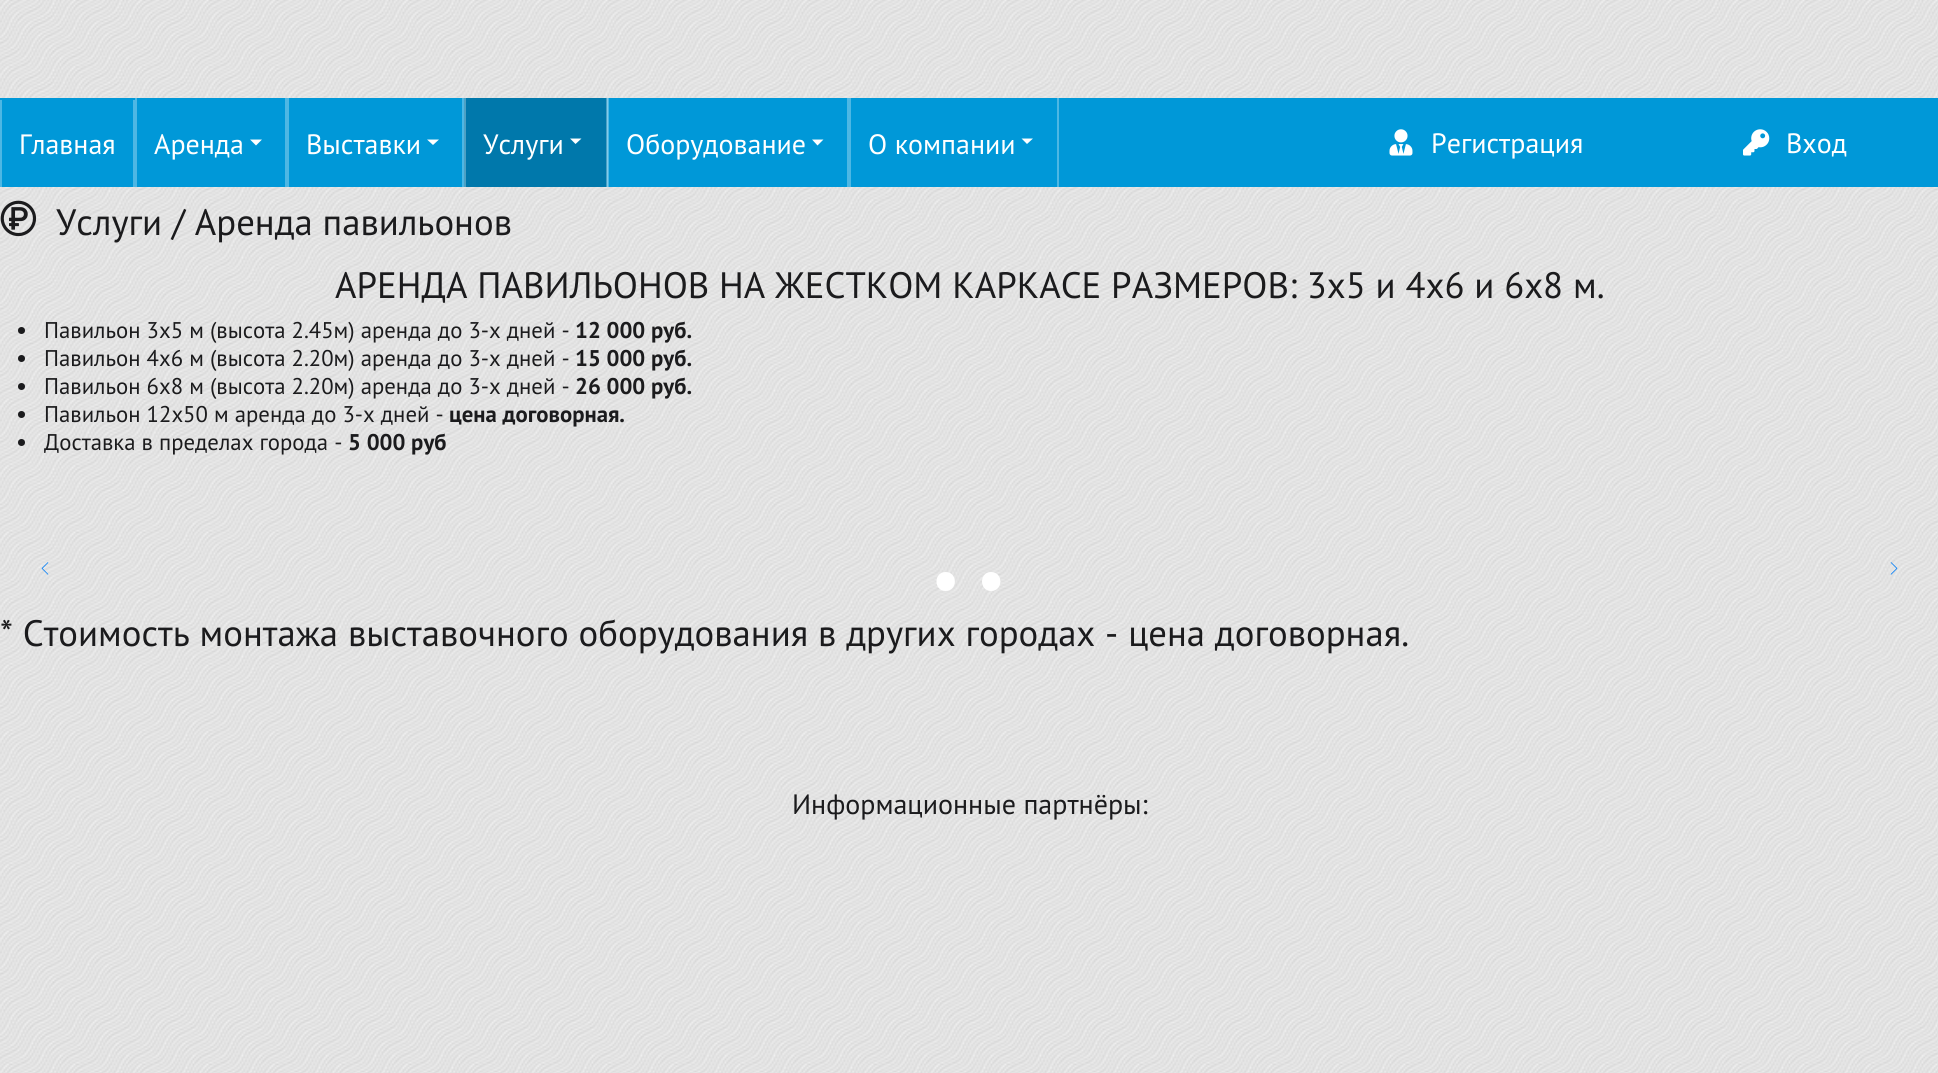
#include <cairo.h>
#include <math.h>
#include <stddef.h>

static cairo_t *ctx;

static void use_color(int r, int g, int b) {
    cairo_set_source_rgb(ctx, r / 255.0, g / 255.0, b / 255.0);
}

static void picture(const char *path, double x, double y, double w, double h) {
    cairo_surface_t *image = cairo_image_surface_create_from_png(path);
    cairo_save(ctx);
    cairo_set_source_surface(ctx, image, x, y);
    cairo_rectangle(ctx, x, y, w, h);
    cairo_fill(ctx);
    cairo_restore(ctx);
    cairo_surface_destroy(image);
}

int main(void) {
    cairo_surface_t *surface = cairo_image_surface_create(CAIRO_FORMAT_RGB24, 1938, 1073);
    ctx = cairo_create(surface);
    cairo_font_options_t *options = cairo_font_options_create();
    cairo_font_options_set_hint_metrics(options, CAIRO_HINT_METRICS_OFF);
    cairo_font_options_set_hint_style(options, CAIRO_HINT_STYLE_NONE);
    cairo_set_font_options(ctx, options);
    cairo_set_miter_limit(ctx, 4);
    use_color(255, 255, 255);
    cairo_paint(ctx);
    picture("img1.png", 0, 0, 1938, 1073);
    use_color(0, 152, 216);
    cairo_rectangle(ctx, 0, 98, 1938, 89);
    cairo_fill(ctx);
    use_color(77, 183, 228);
    cairo_rectangle(ctx, 133, 100, 2, 87);
    cairo_fill(ctx);
    cairo_rectangle(ctx, 0, 100, 2, 87);
    cairo_fill(ctx);
    cairo_select_font_face(ctx, "PT Sans", CAIRO_FONT_SLANT_NORMAL, CAIRO_FONT_WEIGHT_NORMAL);
    cairo_set_font_size(ctx, 28);
    use_color(255, 255, 255);
    cairo_move_to(ctx, 19, 154);
    cairo_show_text(ctx, "Главная");
    use_color(77, 183, 228);
    cairo_rectangle(ctx, 285, 98, 4, 89);
    cairo_fill(ctx);
    cairo_rectangle(ctx, 135, 98, 2, 89);
    cairo_fill(ctx);
    use_color(255, 255, 255);
    cairo_move_to(ctx, 154, 154);
    cairo_show_text(ctx, "Аренда");
    cairo_new_path(ctx);
    cairo_move_to(ctx, 250, 139.5);
    cairo_line_to(ctx, 262, 139.5);
    cairo_line_to(ctx, 256, 145.5);
    cairo_close_path(ctx);
    cairo_fill(ctx);
    use_color(77, 183, 228);
    cairo_rectangle(ctx, 462, 98, 2, 89);
    cairo_fill(ctx);
    use_color(255, 255, 255);
    cairo_move_to(ctx, 306, 154);
    cairo_show_text(ctx, "Выставки");
    cairo_new_path(ctx);
    cairo_move_to(ctx, 427, 139.5);
    cairo_line_to(ctx, 439, 139.5);
    cairo_line_to(ctx, 433, 145);
    cairo_close_path(ctx);
    cairo_fill(ctx);
    use_color(0, 120, 171);
    cairo_rectangle(ctx, 466, 98, 141, 89);
    cairo_fill(ctx);
    cairo_set_source_rgba(ctx, 1, 1, 1, 0.3);
    cairo_rectangle(ctx, 606, 98, 2, 89);
    cairo_fill(ctx);
    use_color(77, 161, 196);
    cairo_rectangle(ctx, 464, 98, 2, 89);
    cairo_fill(ctx);
    use_color(255, 255, 255);
    cairo_move_to(ctx, 483, 154);
    cairo_show_text(ctx, "Услуги");
    cairo_new_path(ctx);
    cairo_move_to(ctx, 570, 138.5);
    cairo_line_to(ctx, 581.5, 138.5);
    cairo_line_to(ctx, 575.5, 144);
    cairo_close_path(ctx);
    cairo_fill(ctx);
    use_color(77, 183, 228);
    cairo_rectangle(ctx, 847, 98, 4, 89);
    cairo_fill(ctx);
    cairo_set_source_rgba(ctx, 1, 1, 1, 0.3);
    cairo_rectangle(ctx, 607, 98, 2, 89);
    cairo_fill(ctx);
    use_color(255, 255, 255);
    cairo_move_to(ctx, 626, 154);
    cairo_show_text(ctx, "Оборудование");
    cairo_new_path(ctx);
    cairo_move_to(ctx, 812, 139.5);
    cairo_line_to(ctx, 823.5, 139.5);
    cairo_line_to(ctx, 817.5, 145.5);
    cairo_close_path(ctx);
    cairo_fill(ctx);
    use_color(77, 183, 228);
    cairo_rectangle(ctx, 1057, 98, 2, 89);
    cairo_fill(ctx);
    use_color(255, 255, 255);
    cairo_move_to(ctx, 868, 154);
    cairo_show_text(ctx, "О компании");
    cairo_new_path(ctx);
    cairo_move_to(ctx, 1021.5, 138.5);
    cairo_line_to(ctx, 1033, 138.5);
    cairo_line_to(ctx, 1027, 144);
    cairo_close_path(ctx);
    cairo_fill(ctx);
    picture("img2.png", 1389, 129, 24, 27);
    cairo_move_to(ctx, 1431, 153);
    cairo_show_text(ctx, "Регистрация");
    picture("img3.png", 1743, 129, 27, 27);
    cairo_move_to(ctx, 1786, 153);
    cairo_show_text(ctx, "Вход");
    picture("img4.png", 0, 200, 37, 37);
    cairo_set_font_size(ctx, 36.75);
    use_color(27, 27, 29);
    cairo_move_to(ctx, 56, 235);
    cairo_show_text(ctx, "Услуги / Аренда павильонов");
    cairo_move_to(ctx, 335, 298);
    cairo_show_text(ctx, "АРЕНДА ПАВИЛЬОНОВ НА ЖЕСТКОМ КАРКАСЕ РАЗМЕРОВ: 3х5 и 4х6 и 6x8 м.");
    cairo_new_path(ctx);
    cairo_arc(ctx, 21.5, 330.5, 3.5, 0, 2 * M_PI);
    cairo_fill(ctx);
    cairo_set_font_size(ctx, 22.75);
    cairo_move_to(ctx, 44, 338);
    cairo_show_text(ctx, "Павильон 3х5 м (высота 2.45м) аренда до 3-х дней -");
    cairo_select_font_face(ctx, "PT Sans", CAIRO_FONT_SLANT_NORMAL, CAIRO_FONT_WEIGHT_BOLD);
    cairo_move_to(ctx, 575, 338);
    cairo_show_text(ctx, "12 000 руб.");
    cairo_new_path(ctx);
    cairo_arc(ctx, 21.5, 358.5, 3.5, 0, 2 * M_PI);
    cairo_fill(ctx);
    cairo_select_font_face(ctx, "PT Sans", CAIRO_FONT_SLANT_NORMAL, CAIRO_FONT_WEIGHT_NORMAL);
    cairo_move_to(ctx, 44, 366);
    cairo_show_text(ctx, "Павильон 4х6 м (высота 2.20м) аренда до 3-х дней -");
    cairo_select_font_face(ctx, "PT Sans", CAIRO_FONT_SLANT_NORMAL, CAIRO_FONT_WEIGHT_BOLD);
    cairo_move_to(ctx, 575, 366);
    cairo_show_text(ctx, "15 000 руб.");
    cairo_new_path(ctx);
    cairo_arc(ctx, 21.5, 386.5, 3.5, 0, 2 * M_PI);
    cairo_fill(ctx);
    cairo_select_font_face(ctx, "PT Sans", CAIRO_FONT_SLANT_NORMAL, CAIRO_FONT_WEIGHT_NORMAL);
    cairo_move_to(ctx, 44, 394);
    cairo_show_text(ctx, "Павильон 6х8 м (высота 2.20м) аренда до 3-х дней -");
    cairo_select_font_face(ctx, "PT Sans", CAIRO_FONT_SLANT_NORMAL, CAIRO_FONT_WEIGHT_BOLD);
    cairo_move_to(ctx, 575, 394);
    cairo_show_text(ctx, "26 000 руб.");
    cairo_new_path(ctx);
    cairo_arc(ctx, 21.5, 414.5, 3.5, 0, 2 * M_PI);
    cairo_fill(ctx);
    cairo_select_font_face(ctx, "PT Sans", CAIRO_FONT_SLANT_NORMAL, CAIRO_FONT_WEIGHT_NORMAL);
    cairo_move_to(ctx, 44, 422);
    cairo_show_text(ctx, "Павильон 12х50 м аренда до 3-х дней -");
    cairo_select_font_face(ctx, "PT Sans", CAIRO_FONT_SLANT_NORMAL, CAIRO_FONT_WEIGHT_BOLD);
    cairo_move_to(ctx, 449, 422);
    cairo_show_text(ctx, "цена договорная.");
    cairo_new_path(ctx);
    cairo_arc(ctx, 21.5, 442.5, 3.5, 0, 2 * M_PI);
    cairo_fill(ctx);
    cairo_select_font_face(ctx, "PT Sans", CAIRO_FONT_SLANT_NORMAL, CAIRO_FONT_WEIGHT_NORMAL);
    cairo_move_to(ctx, 44, 450);
    cairo_show_text(ctx, "Доставка в пределах города -");
    cairo_select_font_face(ctx, "PT Sans", CAIRO_FONT_SLANT_NORMAL, CAIRO_FONT_WEIGHT_BOLD);
    cairo_move_to(ctx, 348, 450);
    cairo_show_text(ctx, "5 000 руб");
    picture("img5.png", 41, 562, 8, 13);
    picture("img6.png", 1890, 562, 8, 13);
    use_color(255, 255, 255);
    cairo_new_path(ctx);
    cairo_move_to(ctx, 945.5, 572);
    cairo_curve_to(ctx, 958, 572, 958, 591, 945.5, 591);
    cairo_curve_to(ctx, 933.5, 591, 933.5, 572, 945.5, 572);
    cairo_close_path(ctx);
    cairo_fill(ctx);
    cairo_new_path(ctx);
    cairo_move_to(ctx, 991, 572);
    cairo_curve_to(ctx, 1003.5, 572, 1003.5, 591, 991, 591);
    cairo_curve_to(ctx, 979, 591, 979, 572, 991, 572);
    cairo_close_path(ctx);
    cairo_fill(ctx);
    cairo_select_font_face(ctx, "PT Sans", CAIRO_FONT_SLANT_NORMAL, CAIRO_FONT_WEIGHT_NORMAL);
    cairo_set_font_size(ctx, 36.75);
    use_color(27, 27, 29);
    cairo_move_to(ctx, 0, 646);
    cairo_show_text(ctx, "* Стоимость монтажа выставочного оборудования в других городах - цена договорная.");
    cairo_set_font_size(ctx, 28);
    cairo_move_to(ctx, 792, 814);
    cairo_show_text(ctx, "Информационные партнёры:");
    cairo_surface_write_to_png(surface, "result.png");
    cairo_font_options_destroy(options);
    cairo_destroy(ctx);
    cairo_surface_destroy(surface);
    return 0;
}
